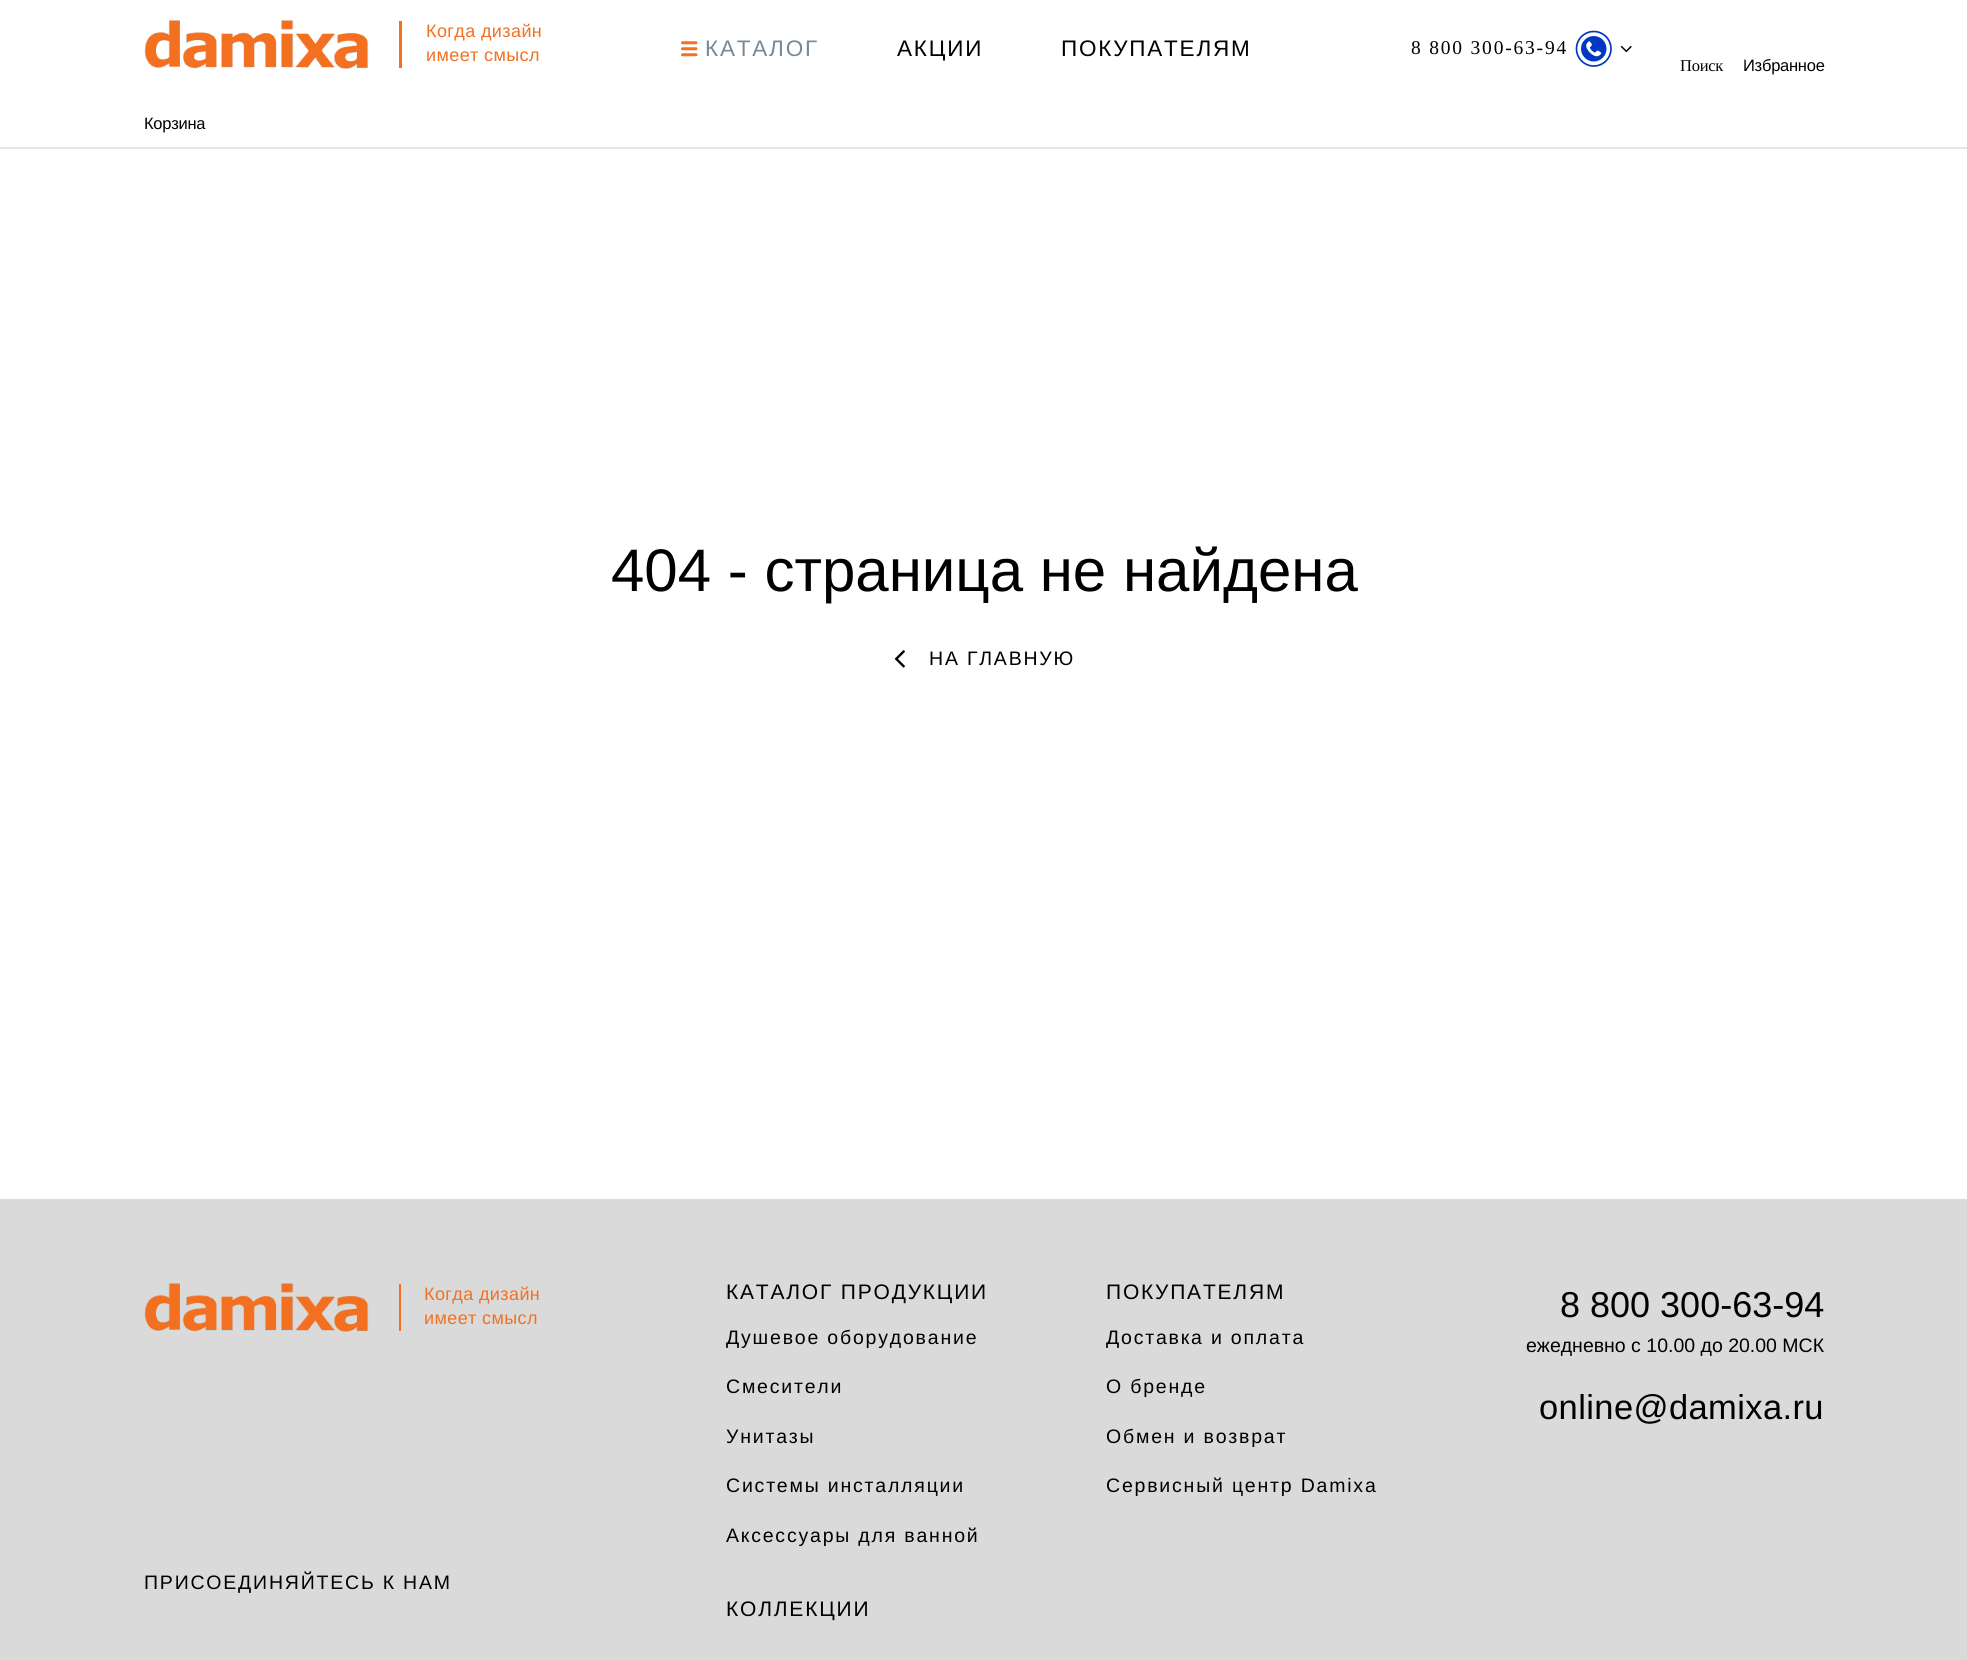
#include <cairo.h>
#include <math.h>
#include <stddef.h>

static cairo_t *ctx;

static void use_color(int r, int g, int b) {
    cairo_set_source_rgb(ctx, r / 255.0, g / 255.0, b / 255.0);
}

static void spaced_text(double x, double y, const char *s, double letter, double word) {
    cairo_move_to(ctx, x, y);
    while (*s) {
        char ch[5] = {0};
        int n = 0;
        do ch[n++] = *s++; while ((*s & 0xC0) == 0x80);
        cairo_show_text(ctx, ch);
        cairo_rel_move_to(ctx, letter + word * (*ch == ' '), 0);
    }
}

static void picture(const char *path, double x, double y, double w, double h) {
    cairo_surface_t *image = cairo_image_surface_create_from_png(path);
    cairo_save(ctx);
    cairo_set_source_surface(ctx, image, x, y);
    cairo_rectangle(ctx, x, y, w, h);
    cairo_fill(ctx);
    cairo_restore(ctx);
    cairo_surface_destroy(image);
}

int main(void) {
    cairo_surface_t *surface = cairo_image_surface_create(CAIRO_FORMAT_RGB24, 1967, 1660);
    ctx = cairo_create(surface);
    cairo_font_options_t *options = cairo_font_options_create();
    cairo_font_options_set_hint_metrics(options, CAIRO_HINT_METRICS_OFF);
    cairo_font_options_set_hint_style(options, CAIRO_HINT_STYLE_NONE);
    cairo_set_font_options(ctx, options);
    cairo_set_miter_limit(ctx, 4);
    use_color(255, 255, 255);
    cairo_paint(ctx);
    use_color(228, 231, 234);
    cairo_rectangle(ctx, 0, 147, 1967, 2);
    cairo_fill(ctx);
    picture("img1.png", 144, 20, 225, 49);
    use_color(243, 112, 33);
    cairo_rectangle(ctx, 399, 21, 3, 47);
    cairo_fill(ctx);
    cairo_select_font_face(ctx, "Liberation Sans", CAIRO_FONT_SLANT_NORMAL, CAIRO_FONT_WEIGHT_NORMAL);
    cairo_set_font_size(ctx, 18);
    spaced_text(426, 37, "Когда дизайн", 0.4, 0);
    spaced_text(426, 61, "имеет смысл", 0.4, 0);
    picture("img2.png", 681, 41, 17, 16);
    cairo_set_font_size(ctx, 22.5);
    use_color(121, 136, 151);
    spaced_text(705, 56, "КАТАЛОГ", 1.8, 0);
    use_color(0, 0, 0);
    spaced_text(897, 56, "АКЦИИ", 1.8, 0);
    spaced_text(1061, 56, "ПОКУПАТЕЛЯМ", 1.8, 0);
    cairo_select_font_face(ctx, "Liberation Serif", CAIRO_FONT_SLANT_NORMAL, CAIRO_FONT_WEIGHT_NORMAL);
    cairo_set_font_size(ctx, 19.5);
    spaced_text(1411, 54, "8 800 300-63-94", 1.8, 0);
    picture("img3.png", 1575, 30, 37, 37);
    picture("img4.png", 1620, 45, 12, 8);
    cairo_set_font_size(ctx, 16.5);
    spaced_text(1680, 71, "Поиск", -0.25, 0);
    cairo_select_font_face(ctx, "Liberation Sans", CAIRO_FONT_SLANT_NORMAL, CAIRO_FONT_WEIGHT_NORMAL);
    spaced_text(1743, 71, "Избранное", -0.25, 0);
    spaced_text(144, 129, "Корзина", -0.25, 0);
    cairo_set_font_size(ctx, 60);
    cairo_move_to(ctx, 611, 591);
    cairo_show_text(ctx, "404 - страница не найдена");
    picture("img5.png", 894, 650, 11, 18);
    cairo_set_font_size(ctx, 19.5);
    spaced_text(929, 665, "НА ГЛАВНУЮ", 1.8, 0);
    use_color(218, 218, 218);
    cairo_rectangle(ctx, 0, 1199, 1967, 461);
    cairo_fill(ctx);
    picture("img6.png", 144, 1283, 225, 49);
    use_color(243, 112, 33);
    cairo_rectangle(ctx, 399, 1284, 2, 47);
    cairo_fill(ctx);
    cairo_set_font_size(ctx, 18);
    spaced_text(424, 1300, "Когда дизайн", 0.4, 0);
    spaced_text(424, 1324, "имеет смысл", 0.4, 0);
    cairo_set_font_size(ctx, 19.5);
    use_color(0, 0, 0);
    spaced_text(144, 1589, "ПРИСОЕДИНЯЙТЕСЬ К НАМ", 1.8, 0);
    cairo_set_font_size(ctx, 21);
    spaced_text(726, 1299, "КАТАЛОГ ПРОДУКЦИИ", 1.8, 0);
    cairo_set_font_size(ctx, 19.5);
    spaced_text(726, 1344, "Душевое оборудование", 1.8, 0);
    spaced_text(726, 1393, "Смесители", 1.8, 0);
    spaced_text(726, 1443, "Унитазы", 1.8, 0);
    spaced_text(726, 1492, "Системы инсталляции", 1.8, 0);
    spaced_text(726, 1542, "Аксессуары для ванной", 1.8, 0);
    cairo_set_font_size(ctx, 21);
    spaced_text(726, 1616, "КОЛЛЕКЦИИ", 1.8, 0);
    spaced_text(1106, 1299, "ПОКУПАТЕЛЯМ", 1.8, 0);
    cairo_set_font_size(ctx, 19.5);
    spaced_text(1106, 1344, "Доставка и оплата", 1.8, 0);
    spaced_text(1106, 1393, "О бренде", 1.8, 0);
    spaced_text(1106, 1443, "Обмен и возврат", 1.8, 0);
    spaced_text(1106, 1492, "Сервисный центр Damixa", 1.8, 0);
    cairo_set_font_size(ctx, 36);
    cairo_move_to(ctx, 1560, 1317);
    cairo_show_text(ctx, "8 800 300-63-94");
    cairo_set_font_size(ctx, 19.5);
    cairo_move_to(ctx, 1526, 1352);
    cairo_show_text(ctx, "ежедневно с 10.00 до 20.00 МСК");
    cairo_set_font_size(ctx, 34.5);
    spaced_text(1539, 1419, "online@damixa.ru", 0.4, 0);
    cairo_surface_write_to_png(surface, "result.png");
    cairo_font_options_destroy(options);
    cairo_destroy(ctx);
    cairo_surface_destroy(surface);
    return 0;
}
